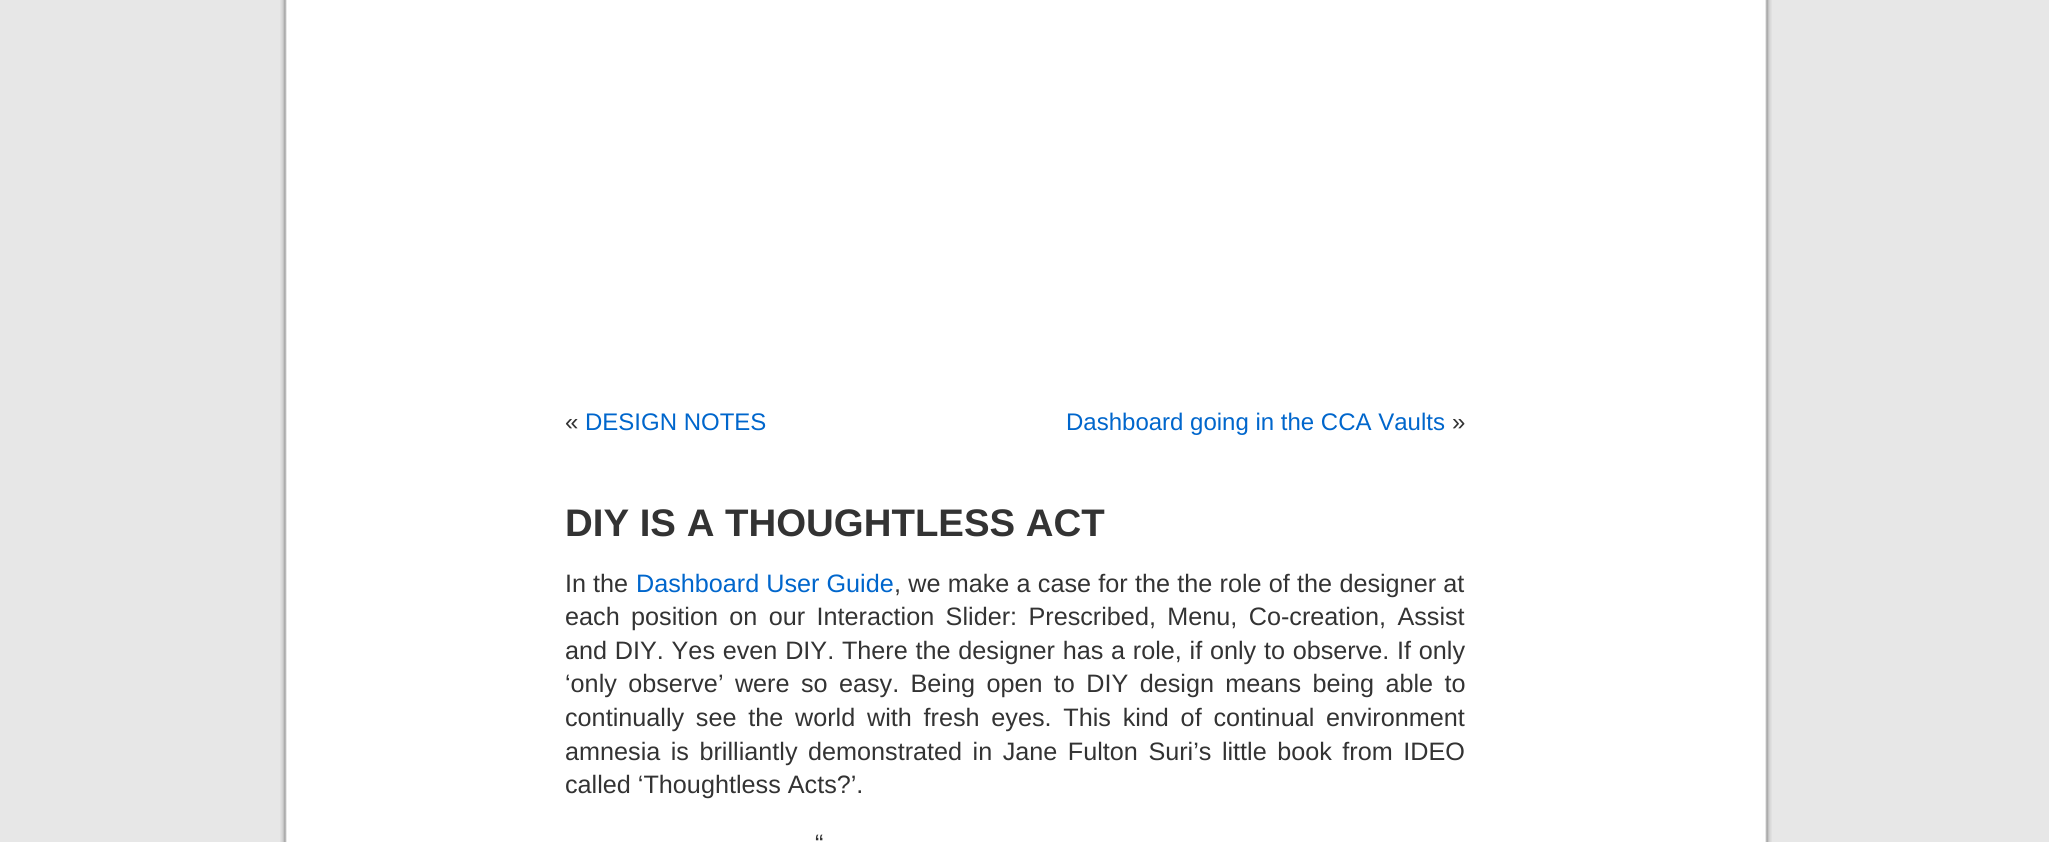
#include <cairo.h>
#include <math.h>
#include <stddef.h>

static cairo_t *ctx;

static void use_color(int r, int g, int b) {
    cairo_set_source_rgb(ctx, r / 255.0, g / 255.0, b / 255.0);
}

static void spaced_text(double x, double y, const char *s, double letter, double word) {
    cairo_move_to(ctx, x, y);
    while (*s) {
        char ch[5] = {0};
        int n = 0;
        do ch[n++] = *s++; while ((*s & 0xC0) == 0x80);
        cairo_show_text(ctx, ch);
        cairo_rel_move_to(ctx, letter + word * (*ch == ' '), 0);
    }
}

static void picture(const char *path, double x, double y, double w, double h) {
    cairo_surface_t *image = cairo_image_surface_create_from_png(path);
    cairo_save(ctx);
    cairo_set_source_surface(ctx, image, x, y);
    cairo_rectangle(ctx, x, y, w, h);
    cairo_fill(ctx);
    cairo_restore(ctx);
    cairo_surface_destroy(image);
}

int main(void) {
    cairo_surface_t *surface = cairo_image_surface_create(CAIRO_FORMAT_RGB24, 2049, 842);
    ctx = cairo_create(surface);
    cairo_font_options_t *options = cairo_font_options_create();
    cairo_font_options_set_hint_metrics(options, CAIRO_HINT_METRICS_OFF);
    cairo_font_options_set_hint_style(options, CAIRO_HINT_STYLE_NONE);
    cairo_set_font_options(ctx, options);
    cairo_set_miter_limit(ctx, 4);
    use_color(231, 231, 231);
    cairo_paint(ctx);
    picture("img1.png", 280, 0, 1492, 842);
    cairo_select_font_face(ctx, "Liberation Sans", CAIRO_FONT_SLANT_NORMAL, CAIRO_FONT_WEIGHT_NORMAL);
    cairo_set_font_size(ctx, 24);
    use_color(51, 51, 51);
    cairo_move_to(ctx, 565, 430);
    cairo_show_text(ctx, "«");
    use_color(0, 102, 204);
    cairo_move_to(ctx, 585, 430);
    cairo_show_text(ctx, "DESIGN NOTES");
    cairo_move_to(ctx, 1066, 430);
    cairo_show_text(ctx, "Dashboard going in the CCA Vaults");
    use_color(51, 51, 51);
    cairo_move_to(ctx, 1452, 430);
    cairo_show_text(ctx, "»");
    cairo_select_font_face(ctx, "Liberation Sans", CAIRO_FONT_SLANT_NORMAL, CAIRO_FONT_WEIGHT_BOLD);
    cairo_set_font_size(ctx, 38.4);
    cairo_move_to(ctx, 565, 536);
    cairo_show_text(ctx, "DIY IS A THOUGHTLESS ACT");
    cairo_select_font_face(ctx, "Liberation Sans", CAIRO_FONT_SLANT_NORMAL, CAIRO_FONT_WEIGHT_NORMAL);
    cairo_set_font_size(ctx, 25.2);
    cairo_move_to(ctx, 565, 592);
    cairo_show_text(ctx, "In the");
    use_color(0, 102, 204);
    cairo_move_to(ctx, 636, 592);
    cairo_show_text(ctx, "Dashboard User Guide");
    use_color(51, 51, 51);
    spaced_text(894, 592, ", we make a case for the the role of the designer at", 0, 0.25);
    spaced_text(565, 625, "each position on our Interaction Slider: Prescribed, Menu, Co-creation, Assist", 0, 4.4);
    spaced_text(565, 659, "and DIY. Yes even DIY. There the designer has a role, if only to observe. If only", 0, 0.75);
    spaced_text(565, 692, "‘only observe’ were so easy. Being open to DIY design means being able to", 0, 4.4);
    spaced_text(565, 726, "continually see the world with fresh eyes. This kind of continual environment", 0, 4.75);
    spaced_text(565, 760, "amnesia is brilliantly demonstrated in Jane Fulton Suri’s little book from IDEO", 0, 3.5);
    cairo_move_to(ctx, 565, 793);
    cairo_show_text(ctx, "called ‘Thoughtless Acts?’.");
    spaced_text(815, 852, "“", 0, 3.5);
    cairo_surface_write_to_png(surface, "result.png");
    cairo_font_options_destroy(options);
    cairo_destroy(ctx);
    cairo_surface_destroy(surface);
    return 0;
}
